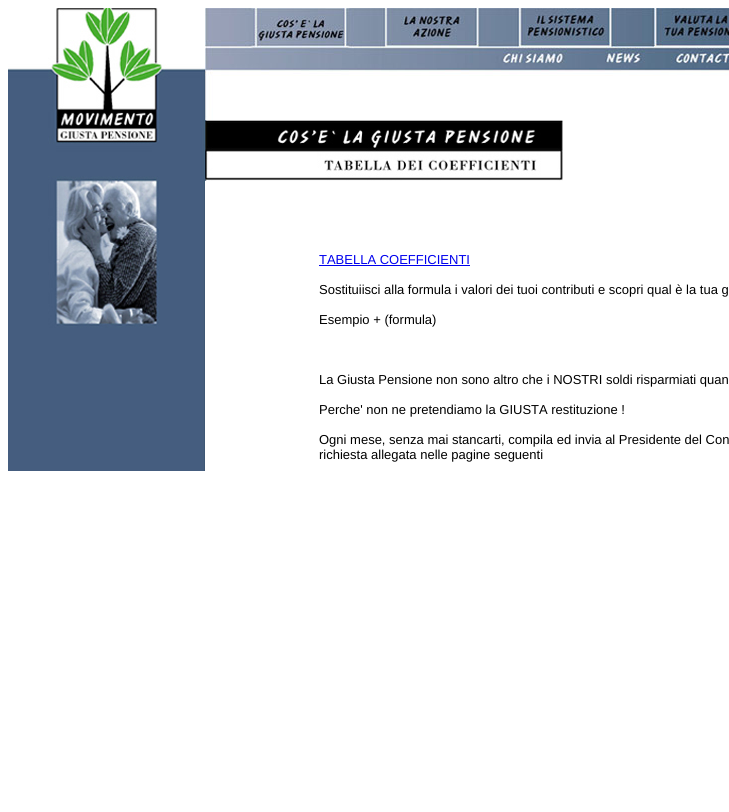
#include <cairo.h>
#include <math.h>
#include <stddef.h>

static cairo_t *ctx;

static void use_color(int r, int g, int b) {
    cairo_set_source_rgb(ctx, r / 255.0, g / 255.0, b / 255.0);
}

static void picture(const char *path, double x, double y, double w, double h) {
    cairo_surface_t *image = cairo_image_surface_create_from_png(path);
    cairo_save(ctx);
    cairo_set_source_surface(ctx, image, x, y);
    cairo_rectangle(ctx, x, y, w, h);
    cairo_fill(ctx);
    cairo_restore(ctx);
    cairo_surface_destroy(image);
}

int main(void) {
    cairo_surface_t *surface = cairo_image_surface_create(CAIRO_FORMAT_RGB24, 729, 812);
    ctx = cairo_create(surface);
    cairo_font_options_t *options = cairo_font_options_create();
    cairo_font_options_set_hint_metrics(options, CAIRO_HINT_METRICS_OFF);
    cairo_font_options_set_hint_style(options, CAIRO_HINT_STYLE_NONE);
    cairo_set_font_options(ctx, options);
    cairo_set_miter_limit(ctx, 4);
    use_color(255, 255, 255);
    cairo_paint(ctx);
    picture("img1.png", 8, 8, 197, 463);
    picture("img2.png", 205, 8, 49, 60);
    picture("img3.png", 254, 8, 92, 39);
    picture("img4.png", 346, 8, 39, 60);
    picture("img5.png", 385, 8, 94, 39);
    picture("img6.png", 479, 8, 40, 39);
    picture("img7.png", 519, 8, 91, 39);
    picture("img8.png", 610, 8, 45, 39);
    picture("img9.png", 655, 8, 74, 39);
    picture("img10.png", 254, 47, 92, 21);
    picture("img11.png", 385, 47, 94, 21);
    picture("img12.png", 479, 47, 102, 21);
    picture("img13.png", 581, 47, 74, 21);
    picture("img14.png", 655, 47, 74, 21);
    picture("img15.png", 205, 68, 524, 52);
    picture("img16.png", 205, 120, 358, 61);
    cairo_select_font_face(ctx, "Liberation Sans", CAIRO_FONT_SLANT_NORMAL, CAIRO_FONT_WEIGHT_NORMAL);
    cairo_set_font_size(ctx, 13);
    use_color(0, 0, 238);
    cairo_move_to(ctx, 319, 264);
    cairo_show_text(ctx, "TABELLA COEFFICIENTI");
    cairo_rectangle(ctx, 319, 265, 151, 1);
    cairo_fill(ctx);
    use_color(0, 0, 0);
    cairo_move_to(ctx, 319, 294);
    cairo_show_text(ctx, "Sostituiisci alla formula i valori dei tuoi contributi e scopri qual è la tua g");
    cairo_move_to(ctx, 319, 324);
    cairo_show_text(ctx, "Esempio + (formula)");
    cairo_move_to(ctx, 319, 384);
    cairo_show_text(ctx, "La Giusta Pensione non sono altro che i NOSTRI soldi risparmiati quan");
    cairo_move_to(ctx, 319, 414);
    cairo_show_text(ctx, "Perche' non ne pretendiamo la GIUSTA restituzione !");
    cairo_move_to(ctx, 319, 444);
    cairo_show_text(ctx, "Ogni mese, senza mai stancarti, compila ed invia al Presidente del Con");
    cairo_move_to(ctx, 319, 459);
    cairo_show_text(ctx, "richiesta allegata nelle pagine seguenti");
    cairo_surface_write_to_png(surface, "result.png");
    cairo_font_options_destroy(options);
    cairo_destroy(ctx);
    cairo_surface_destroy(surface);
    return 0;
}
